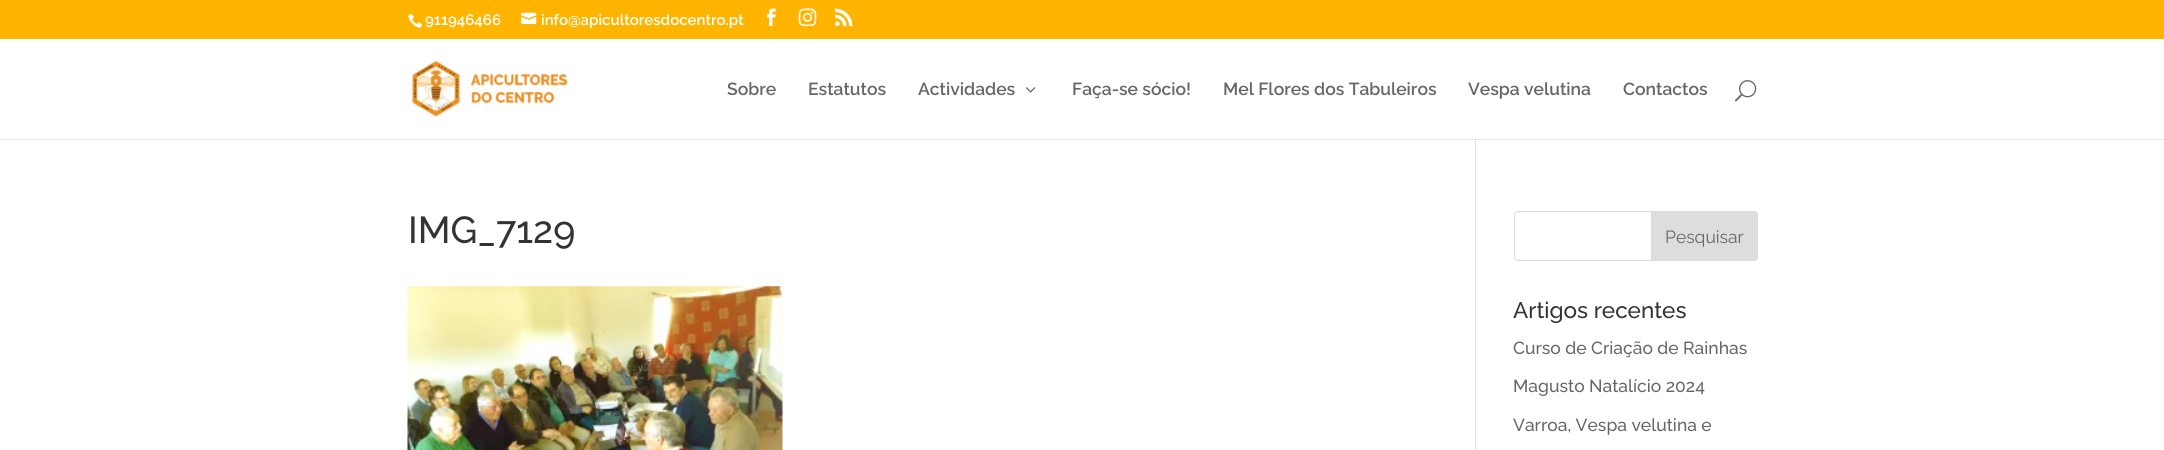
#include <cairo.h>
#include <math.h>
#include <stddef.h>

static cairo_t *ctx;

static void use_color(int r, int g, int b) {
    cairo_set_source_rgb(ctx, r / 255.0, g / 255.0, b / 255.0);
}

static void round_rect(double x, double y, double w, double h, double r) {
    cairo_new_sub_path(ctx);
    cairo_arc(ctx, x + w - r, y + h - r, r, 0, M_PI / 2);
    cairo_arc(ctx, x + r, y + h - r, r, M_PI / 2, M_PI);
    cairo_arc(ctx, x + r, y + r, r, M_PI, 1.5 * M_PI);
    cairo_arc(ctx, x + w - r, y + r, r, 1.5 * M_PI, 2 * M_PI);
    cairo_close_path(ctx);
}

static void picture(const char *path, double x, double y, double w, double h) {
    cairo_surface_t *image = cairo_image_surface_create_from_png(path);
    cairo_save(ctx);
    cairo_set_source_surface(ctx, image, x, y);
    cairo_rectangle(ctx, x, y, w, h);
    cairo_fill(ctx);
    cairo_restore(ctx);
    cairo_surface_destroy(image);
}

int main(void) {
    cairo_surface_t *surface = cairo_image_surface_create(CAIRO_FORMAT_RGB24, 2164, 450);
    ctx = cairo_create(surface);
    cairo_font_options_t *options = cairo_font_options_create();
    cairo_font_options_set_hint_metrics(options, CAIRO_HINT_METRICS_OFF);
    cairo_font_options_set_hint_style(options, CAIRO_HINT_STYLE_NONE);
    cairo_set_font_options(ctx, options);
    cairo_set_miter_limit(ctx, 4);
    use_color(255, 255, 255);
    cairo_paint(ctx);
    use_color(255, 180, 0);
    cairo_rectangle(ctx, 0, 0, 2164, 39);
    cairo_fill(ctx);
    picture("img1.png", 408, 14, 14, 14);
    cairo_select_font_face(ctx, "Raleway SemiBold", CAIRO_FONT_SLANT_NORMAL, CAIRO_FONT_WEIGHT_NORMAL);
    cairo_set_font_size(ctx, 15);
    use_color(255, 255, 255);
    cairo_move_to(ctx, 425, 25);
    cairo_show_text(ctx, "911946466");
    picture("img2.png", 521, 12, 16, 13);
    cairo_move_to(ctx, 541, 25);
    cairo_show_text(ctx, "info@apicultoresdocentro.pt");
    picture("img3.png", 766, 8, 10, 19);
    picture("img4.png", 798, 8, 19, 19);
    picture("img5.png", 835, 8, 18, 19);
    picture("img6.png", 412, 61, 156, 56);
    cairo_set_font_size(ctx, 17.5);
    use_color(102, 102, 102);
    cairo_move_to(ctx, 727, 95);
    cairo_show_text(ctx, "Sobre");
    cairo_move_to(ctx, 808, 95);
    cairo_show_text(ctx, "Estatutos");
    cairo_move_to(ctx, 918, 95);
    cairo_show_text(ctx, "Actividades");
    picture("img7.png", 1026, 87, 10, 6);
    cairo_move_to(ctx, 1072, 95);
    cairo_show_text(ctx, "Faça-se sócio!");
    cairo_move_to(ctx, 1223, 95);
    cairo_show_text(ctx, "Mel Flores dos Tabuleiros");
    cairo_move_to(ctx, 1468, 95);
    cairo_show_text(ctx, "Vespa velutina");
    cairo_move_to(ctx, 1623, 95);
    cairo_show_text(ctx, "Contactos");
    picture("img8.png", 1735, 80, 22, 22);
    use_color(230, 230, 230);
    cairo_rectangle(ctx, 0, 139, 2164, 1);
    cairo_fill(ctx);
    use_color(226, 226, 226);
    cairo_rectangle(ctx, 1475, 139, 1, 311);
    cairo_fill(ctx);
    use_color(203, 203, 203);
    cairo_rectangle(ctx, 1475, 139, 1, 1);
    cairo_fill(ctx);
    cairo_select_font_face(ctx, "Raleway Medium", CAIRO_FONT_SLANT_NORMAL, CAIRO_FONT_WEIGHT_NORMAL);
    cairo_set_font_size(ctx, 37.5);
    use_color(51, 51, 51);
    cairo_move_to(ctx, 408, 243);
    cairo_show_text(ctx, "IMG_7129");
    picture("img9.png", 407, 286, 376, 164);
    round_rect(1514.5, 211.5, 243, 49, 3.5);
    use_color(221, 221, 221);
    cairo_set_line_width(ctx, 1);
    cairo_stroke(ctx);
    cairo_new_path(ctx);
    cairo_move_to(ctx, 1651.5, 211.5);
    cairo_line_to(ctx, 1754, 211.5);
    cairo_curve_to(ctx, 1756, 211.5, 1757.5, 213, 1757.5, 215);
    cairo_line_to(ctx, 1757.5, 257);
    cairo_curve_to(ctx, 1757.5, 259, 1756, 260.5, 1754, 260.5);
    cairo_line_to(ctx, 1651.5, 260.5);
    cairo_close_path(ctx);
    cairo_fill_preserve(ctx);
    cairo_stroke(ctx);
    cairo_select_font_face(ctx, "Raleway", CAIRO_FONT_SLANT_NORMAL, CAIRO_FONT_WEIGHT_NORMAL);
    cairo_set_font_size(ctx, 17.5);
    use_color(102, 102, 102);
    cairo_move_to(ctx, 1665, 243);
    cairo_show_text(ctx, "Pesquisar");
    cairo_select_font_face(ctx, "Raleway Medium", CAIRO_FONT_SLANT_NORMAL, CAIRO_FONT_WEIGHT_NORMAL);
    cairo_set_font_size(ctx, 22.5);
    use_color(51, 51, 51);
    cairo_move_to(ctx, 1513, 318);
    cairo_show_text(ctx, "Artigos recentes");
    cairo_set_font_size(ctx, 17.5);
    use_color(102, 102, 102);
    cairo_move_to(ctx, 1513, 354);
    cairo_show_text(ctx, "Curso de Criação de Rainhas");
    cairo_move_to(ctx, 1513, 392);
    cairo_show_text(ctx, "Magusto Natalício 2024");
    cairo_move_to(ctx, 1513, 431);
    cairo_show_text(ctx, "Varroa, Vespa velutina e");
    cairo_surface_write_to_png(surface, "result.png");
    cairo_font_options_destroy(options);
    cairo_destroy(ctx);
    cairo_surface_destroy(surface);
    return 0;
}
